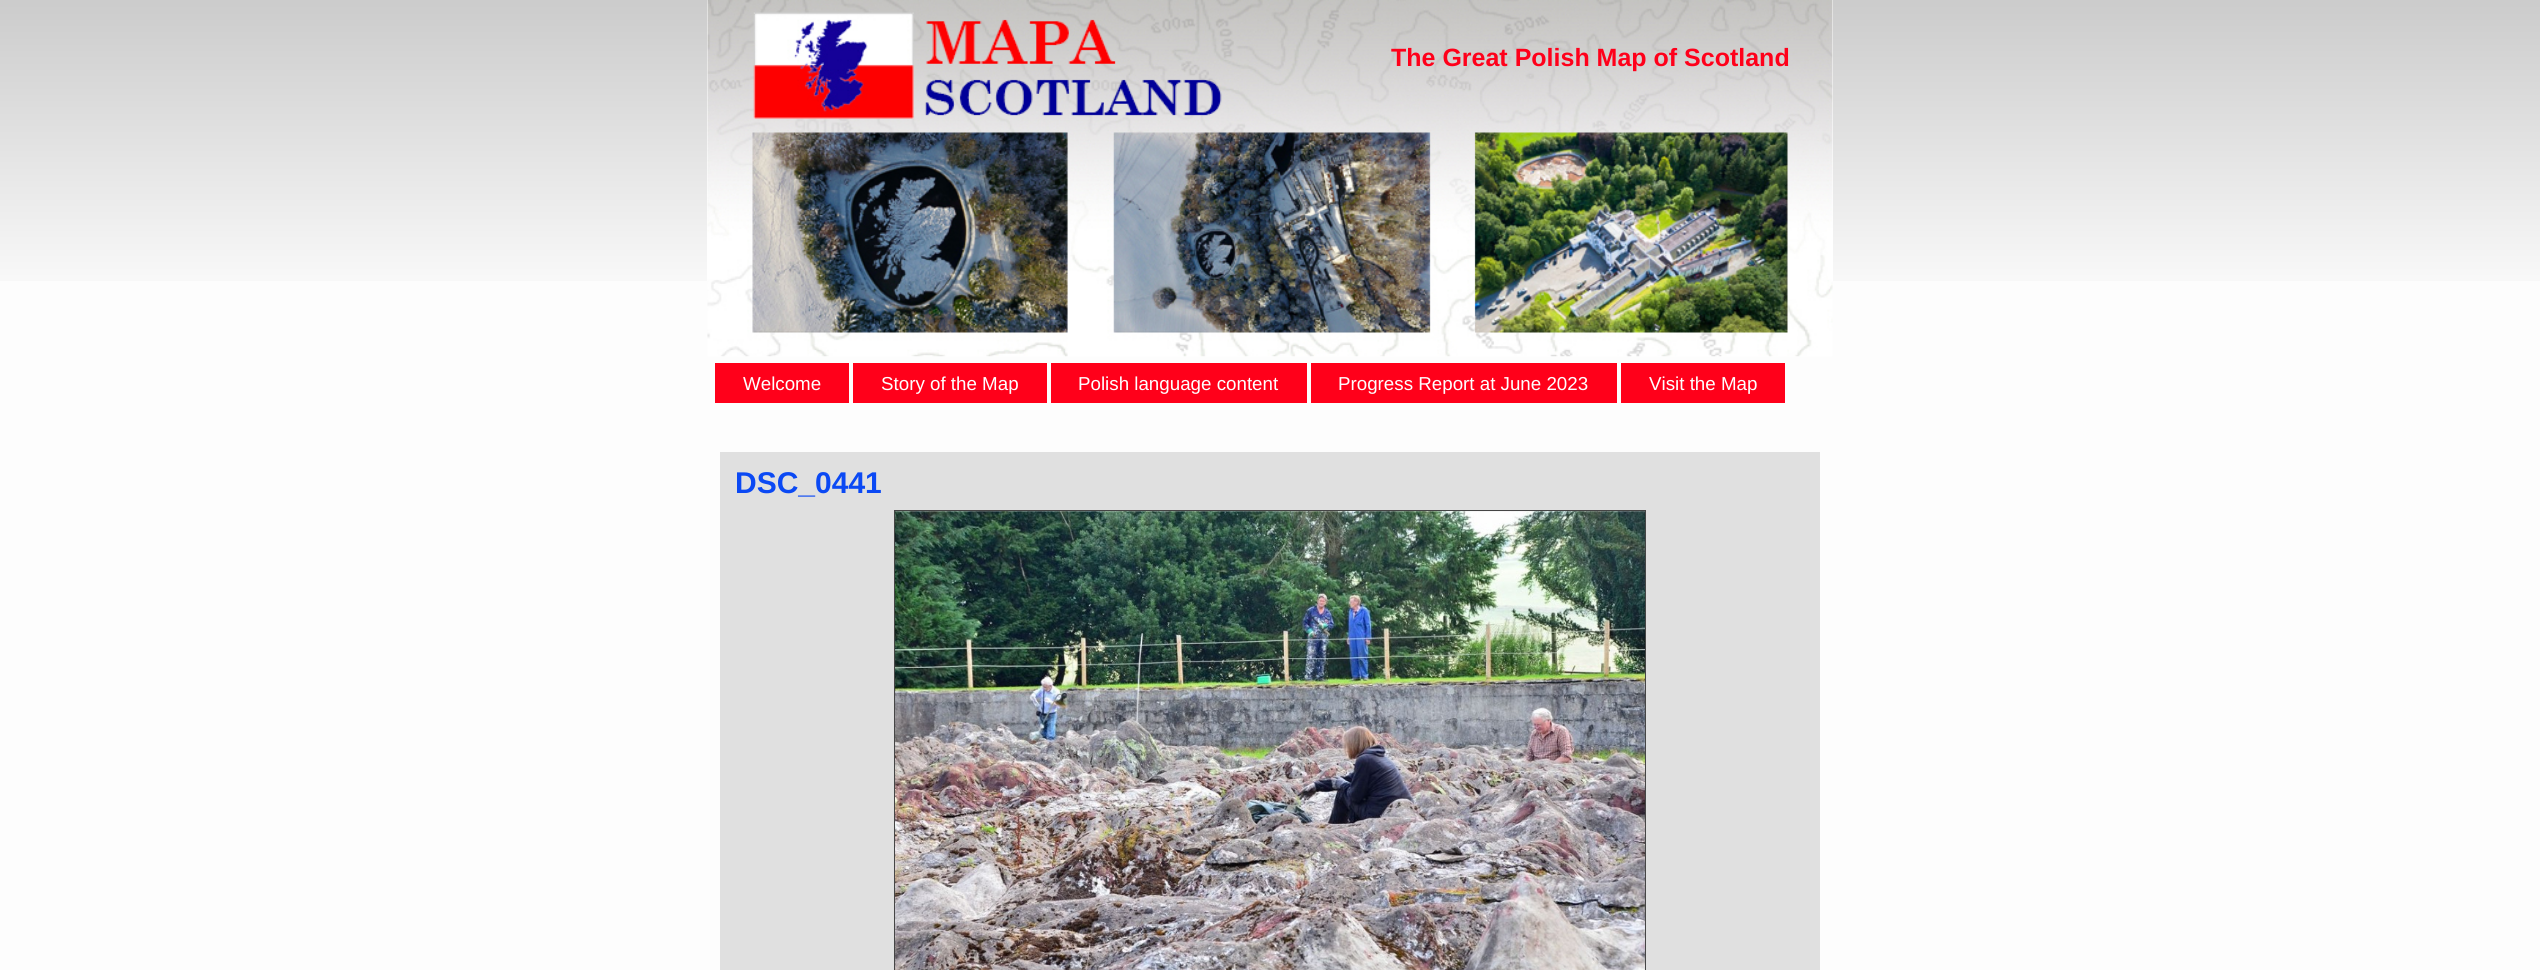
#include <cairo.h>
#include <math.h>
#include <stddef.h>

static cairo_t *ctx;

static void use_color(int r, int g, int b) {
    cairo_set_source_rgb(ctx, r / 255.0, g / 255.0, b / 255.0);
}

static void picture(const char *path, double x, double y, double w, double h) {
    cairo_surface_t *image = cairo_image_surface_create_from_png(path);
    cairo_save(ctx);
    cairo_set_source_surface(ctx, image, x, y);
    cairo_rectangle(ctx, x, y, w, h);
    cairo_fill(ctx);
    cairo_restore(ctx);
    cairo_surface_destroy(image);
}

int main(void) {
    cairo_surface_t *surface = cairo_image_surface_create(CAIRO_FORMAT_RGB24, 2540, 970);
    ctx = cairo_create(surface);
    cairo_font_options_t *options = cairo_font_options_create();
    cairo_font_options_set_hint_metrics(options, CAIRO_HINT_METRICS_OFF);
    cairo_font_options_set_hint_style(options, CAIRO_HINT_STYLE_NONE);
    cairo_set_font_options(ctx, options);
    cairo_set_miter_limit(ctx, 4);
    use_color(253, 253, 253);
    cairo_paint(ctx);
    picture("img1.png", 0, 0, 2540, 281);
    use_color(255, 255, 255);
    cairo_rectangle(ctx, 707, 0, 1126, 281);
    cairo_fill(ctx);
    picture("img2.png", 707, 0, 1126, 357);
    cairo_select_font_face(ctx, "Liberation Sans", CAIRO_FONT_SLANT_NORMAL, CAIRO_FONT_WEIGHT_BOLD);
    cairo_set_font_size(ctx, 25);
    use_color(255, 0, 26);
    cairo_move_to(ctx, 1391, 66);
    cairo_show_text(ctx, "The Great Polish Map of Scotland");
    cairo_rectangle(ctx, 715, 363, 134, 40);
    cairo_fill(ctx);
    cairo_select_font_face(ctx, "Liberation Sans", CAIRO_FONT_SLANT_NORMAL, CAIRO_FONT_WEIGHT_NORMAL);
    cairo_set_font_size(ctx, 18.75);
    use_color(255, 255, 255);
    cairo_move_to(ctx, 743, 390);
    cairo_show_text(ctx, "Welcome");
    use_color(255, 0, 26);
    cairo_rectangle(ctx, 853, 363, 194, 40);
    cairo_fill(ctx);
    use_color(255, 255, 255);
    cairo_move_to(ctx, 881, 390);
    cairo_show_text(ctx, "Story of the Map");
    use_color(255, 0, 26);
    cairo_rectangle(ctx, 1051, 363, 256, 40);
    cairo_fill(ctx);
    use_color(255, 255, 255);
    cairo_move_to(ctx, 1078, 390);
    cairo_show_text(ctx, "Polish language content");
    use_color(255, 0, 26);
    cairo_rectangle(ctx, 1311, 363, 306, 40);
    cairo_fill(ctx);
    use_color(255, 255, 255);
    cairo_move_to(ctx, 1338, 390);
    cairo_show_text(ctx, "Progress Report at June 2023");
    use_color(255, 0, 26);
    cairo_rectangle(ctx, 1621, 363, 164, 40);
    cairo_fill(ctx);
    use_color(255, 255, 255);
    cairo_move_to(ctx, 1649, 390);
    cairo_show_text(ctx, "Visit the Map");
    use_color(224, 224, 224);
    cairo_rectangle(ctx, 720, 452, 1100, 518);
    cairo_fill(ctx);
    cairo_select_font_face(ctx, "Liberation Sans", CAIRO_FONT_SLANT_NORMAL, CAIRO_FONT_WEIGHT_BOLD);
    cairo_set_font_size(ctx, 30);
    use_color(11, 73, 244);
    cairo_move_to(ctx, 735, 493);
    cairo_show_text(ctx, "DSC_0441");
    cairo_rectangle(ctx, 894.5, 510.5, 751, 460);
    use_color(69, 69, 69);
    cairo_set_line_width(ctx, 1);
    cairo_stroke(ctx);
    picture("img3.png", 895, 511, 750, 459);
    cairo_surface_write_to_png(surface, "result.png");
    cairo_font_options_destroy(options);
    cairo_destroy(ctx);
    cairo_surface_destroy(surface);
    return 0;
}
